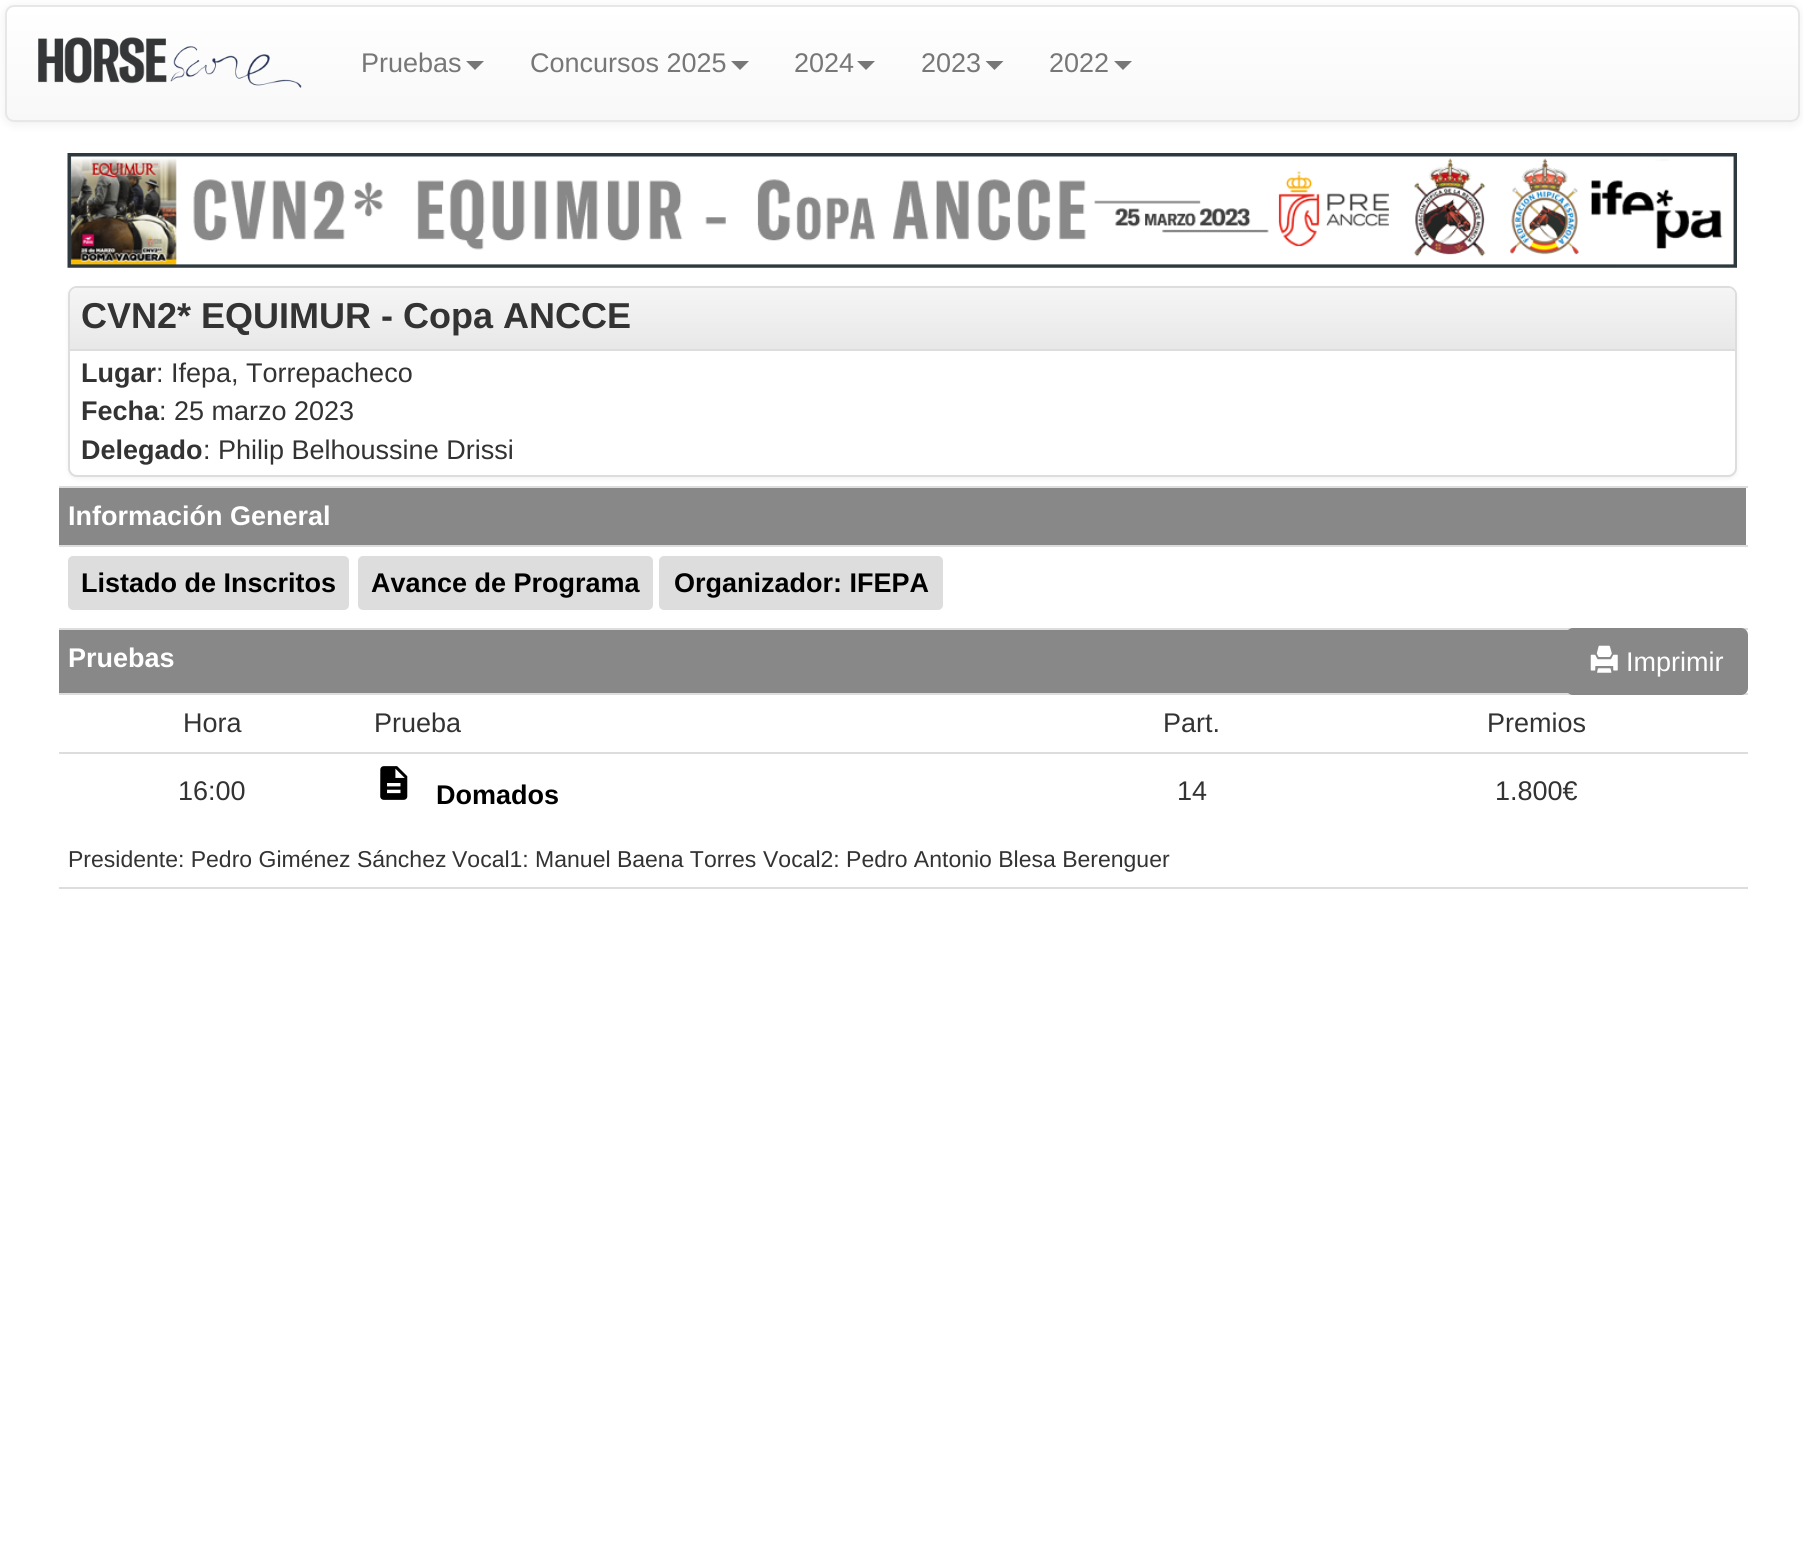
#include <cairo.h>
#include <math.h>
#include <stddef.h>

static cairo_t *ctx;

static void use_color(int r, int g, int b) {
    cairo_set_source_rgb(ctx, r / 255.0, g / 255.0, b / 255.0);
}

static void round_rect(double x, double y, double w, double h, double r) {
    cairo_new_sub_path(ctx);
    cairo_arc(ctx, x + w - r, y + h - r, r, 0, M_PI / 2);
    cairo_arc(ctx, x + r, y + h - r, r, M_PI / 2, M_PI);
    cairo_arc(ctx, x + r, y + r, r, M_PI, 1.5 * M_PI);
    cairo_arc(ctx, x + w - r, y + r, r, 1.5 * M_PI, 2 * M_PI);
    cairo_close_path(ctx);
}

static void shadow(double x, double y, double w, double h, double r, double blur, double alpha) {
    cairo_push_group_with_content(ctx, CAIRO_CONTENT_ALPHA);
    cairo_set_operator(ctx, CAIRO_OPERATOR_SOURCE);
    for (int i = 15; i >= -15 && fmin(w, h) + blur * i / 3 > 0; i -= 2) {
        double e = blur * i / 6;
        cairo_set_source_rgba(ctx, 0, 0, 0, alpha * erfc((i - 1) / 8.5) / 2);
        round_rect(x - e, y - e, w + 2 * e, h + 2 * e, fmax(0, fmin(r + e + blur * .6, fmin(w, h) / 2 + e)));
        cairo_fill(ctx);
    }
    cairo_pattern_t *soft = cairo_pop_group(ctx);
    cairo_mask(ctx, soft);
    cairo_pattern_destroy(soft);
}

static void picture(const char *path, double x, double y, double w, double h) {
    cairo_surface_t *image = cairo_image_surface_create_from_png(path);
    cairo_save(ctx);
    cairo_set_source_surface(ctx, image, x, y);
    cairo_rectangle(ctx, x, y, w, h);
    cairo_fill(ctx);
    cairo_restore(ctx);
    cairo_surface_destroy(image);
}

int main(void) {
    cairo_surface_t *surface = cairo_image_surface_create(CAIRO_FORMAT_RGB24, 1803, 1541);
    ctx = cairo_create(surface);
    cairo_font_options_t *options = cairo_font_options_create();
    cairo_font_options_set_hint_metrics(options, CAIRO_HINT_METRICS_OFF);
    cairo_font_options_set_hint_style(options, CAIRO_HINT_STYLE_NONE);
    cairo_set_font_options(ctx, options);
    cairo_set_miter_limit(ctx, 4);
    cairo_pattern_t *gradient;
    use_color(255, 255, 255);
    cairo_paint(ctx);
    use_color(0, 0, 0);
    shadow(5, 7, 1795, 117, 9, 5.5, 0.07);
    use_color(248, 248, 248);
    round_rect(5, 5, 1795, 117, 9);
    cairo_fill(ctx);
    cairo_save(ctx);
    round_rect(5, 5, 1795, 117, 9);
    cairo_clip(ctx);
    gradient = cairo_pattern_create_linear(902, 6.7, 902, 119);
    cairo_pattern_add_color_stop_rgba(gradient, 0, 1, 1, 1, 1);
    cairo_pattern_add_color_stop_rgba(gradient, 1, 0.973, 0.973, 0.973, 1);
    cairo_set_source(ctx, gradient);
    cairo_pattern_destroy(gradient);
    cairo_rectangle(ctx, 5, 7, 1795, 112);
    cairo_fill(ctx);
    cairo_restore(ctx);
    round_rect(6, 6, 1793, 115, 8);
    use_color(231, 231, 231);
    cairo_stroke(ctx);
    picture("img1.png", 38, 37, 264, 51);
    cairo_select_font_face(ctx, "Liberation Sans", CAIRO_FONT_SLANT_NORMAL, CAIRO_FONT_WEIGHT_NORMAL);
    cairo_set_font_size(ctx, 27);
    use_color(119, 119, 119);
    cairo_move_to(ctx, 361, 72);
    cairo_show_text(ctx, "Pruebas");
    cairo_new_path(ctx);
    cairo_move_to(ctx, 466, 61);
    cairo_line_to(ctx, 484, 61);
    cairo_line_to(ctx, 475, 70);
    cairo_close_path(ctx);
    cairo_fill(ctx);
    cairo_move_to(ctx, 530, 72);
    cairo_show_text(ctx, "Concursos 2025");
    cairo_new_path(ctx);
    cairo_move_to(ctx, 731, 61);
    cairo_line_to(ctx, 749, 61);
    cairo_line_to(ctx, 740, 70);
    cairo_close_path(ctx);
    cairo_fill(ctx);
    cairo_move_to(ctx, 794, 72);
    cairo_show_text(ctx, "2024");
    cairo_new_path(ctx);
    cairo_move_to(ctx, 857, 61);
    cairo_line_to(ctx, 875, 61);
    cairo_line_to(ctx, 866, 70);
    cairo_close_path(ctx);
    cairo_fill(ctx);
    cairo_move_to(ctx, 921, 72);
    cairo_show_text(ctx, "2023");
    cairo_new_path(ctx);
    cairo_move_to(ctx, 985.5, 61);
    cairo_line_to(ctx, 1003.5, 61);
    cairo_line_to(ctx, 994.5, 70);
    cairo_close_path(ctx);
    cairo_fill(ctx);
    cairo_move_to(ctx, 1049, 72);
    cairo_show_text(ctx, "2022");
    cairo_new_path(ctx);
    cairo_move_to(ctx, 1114, 61);
    cairo_line_to(ctx, 1132, 61);
    cairo_line_to(ctx, 1123, 70);
    cairo_close_path(ctx);
    cairo_fill(ctx);
    picture("img2.png", 67, 153, 1670, 115);
    use_color(0, 0, 0);
    shadow(68, 288, 1669, 191, 9, 2, 0.05);
    use_color(255, 255, 255);
    round_rect(69, 287, 1667, 189, 8);
    cairo_fill_preserve(ctx);
    use_color(221, 221, 221);
    cairo_stroke(ctx);
    gradient = cairo_pattern_create_linear(902, 288, 902, 349);
    cairo_pattern_add_color_stop_rgba(gradient, 0, 0.961, 0.961, 0.961, 1);
    cairo_pattern_add_color_stop_rgba(gradient, 1, 0.91, 0.91, 0.91, 1);
    cairo_set_source(ctx, gradient);
    cairo_pattern_destroy(gradient);
    cairo_new_path(ctx);
    cairo_move_to(ctx, 77, 288);
    cairo_line_to(ctx, 1728, 288);
    cairo_curve_to(ctx, 1732, 288, 1735, 291, 1735, 295);
    cairo_line_to(ctx, 1735, 349);
    cairo_line_to(ctx, 70, 349);
    cairo_line_to(ctx, 70, 295);
    cairo_curve_to(ctx, 70, 291, 73, 288, 77, 288);
    cairo_close_path(ctx);
    cairo_fill(ctx);
    use_color(221, 221, 221);
    cairo_rectangle(ctx, 70, 349, 1665, 2);
    cairo_fill(ctx);
    cairo_select_font_face(ctx, "Liberation Sans", CAIRO_FONT_SLANT_NORMAL, CAIRO_FONT_WEIGHT_BOLD);
    cairo_set_font_size(ctx, 36);
    use_color(51, 51, 51);
    cairo_move_to(ctx, 81, 328);
    cairo_show_text(ctx, "CVN2* EQUIMUR - Copa ANCCE");
    cairo_set_font_size(ctx, 27);
    cairo_move_to(ctx, 81, 382);
    cairo_show_text(ctx, "Lugar");
    cairo_select_font_face(ctx, "Liberation Sans", CAIRO_FONT_SLANT_NORMAL, CAIRO_FONT_WEIGHT_NORMAL);
    cairo_move_to(ctx, 156, 382);
    cairo_show_text(ctx, ": Ifepa, Torrepacheco");
    cairo_select_font_face(ctx, "Liberation Sans", CAIRO_FONT_SLANT_NORMAL, CAIRO_FONT_WEIGHT_BOLD);
    cairo_move_to(ctx, 81, 420);
    cairo_show_text(ctx, "Fecha");
    cairo_select_font_face(ctx, "Liberation Sans", CAIRO_FONT_SLANT_NORMAL, CAIRO_FONT_WEIGHT_NORMAL);
    cairo_move_to(ctx, 159, 420);
    cairo_show_text(ctx, ": 25 marzo 2023");
    cairo_select_font_face(ctx, "Liberation Sans", CAIRO_FONT_SLANT_NORMAL, CAIRO_FONT_WEIGHT_BOLD);
    cairo_move_to(ctx, 81, 459);
    cairo_show_text(ctx, "Delegado");
    cairo_select_font_face(ctx, "Liberation Sans", CAIRO_FONT_SLANT_NORMAL, CAIRO_FONT_WEIGHT_NORMAL);
    cairo_move_to(ctx, 203, 459);
    cairo_show_text(ctx, ": Philip Belhoussine Drissi");
    use_color(136, 136, 136);
    cairo_rectangle(ctx, 59, 488, 1687, 57);
    cairo_fill(ctx);
    use_color(221, 221, 221);
    cairo_rectangle(ctx, 59, 486, 1689, 2);
    cairo_fill(ctx);
    cairo_select_font_face(ctx, "Liberation Sans", CAIRO_FONT_SLANT_NORMAL, CAIRO_FONT_WEIGHT_BOLD);
    use_color(255, 255, 255);
    cairo_move_to(ctx, 68, 525);
    cairo_show_text(ctx, "Información General");
    use_color(221, 221, 221);
    cairo_rectangle(ctx, 59, 545, 1689, 2);
    cairo_fill(ctx);
    round_rect(68, 556, 281, 54, 5);
    cairo_fill(ctx);
    use_color(0, 0, 0);
    cairo_move_to(ctx, 81, 592);
    cairo_show_text(ctx, "Listado de Inscritos");
    use_color(221, 221, 221);
    round_rect(358, 556, 295, 54, 5);
    cairo_fill(ctx);
    use_color(0, 0, 0);
    cairo_move_to(ctx, 371, 592);
    cairo_show_text(ctx, "Avance de Programa");
    use_color(221, 221, 221);
    round_rect(659, 556, 284, 54, 5);
    cairo_fill(ctx);
    use_color(0, 0, 0);
    cairo_move_to(ctx, 674, 592);
    cairo_show_text(ctx, "Organizador: IFEPA");
    use_color(136, 136, 136);
    cairo_rectangle(ctx, 59, 630, 1509, 63);
    cairo_fill(ctx);
    use_color(221, 221, 221);
    cairo_rectangle(ctx, 59, 628, 1689, 2);
    cairo_fill(ctx);
    use_color(255, 255, 255);
    cairo_move_to(ctx, 68, 667);
    cairo_show_text(ctx, "Pruebas");
    use_color(221, 221, 221);
    cairo_rectangle(ctx, 59, 693, 1689, 2);
    cairo_fill(ctx);
    use_color(136, 136, 136);
    round_rect(1566, 628, 182, 67, 7);
    cairo_fill(ctx);
    picture("img3.png", 1590, 645, 28, 28);
    cairo_select_font_face(ctx, "Liberation Sans", CAIRO_FONT_SLANT_NORMAL, CAIRO_FONT_WEIGHT_NORMAL);
    use_color(255, 255, 255);
    cairo_move_to(ctx, 1626, 671);
    cairo_show_text(ctx, "Imprimir");
    use_color(51, 51, 51);
    cairo_move_to(ctx, 183, 732);
    cairo_show_text(ctx, "Hora");
    cairo_move_to(ctx, 374, 732);
    cairo_show_text(ctx, "Prueba");
    cairo_move_to(ctx, 1163, 732);
    cairo_show_text(ctx, "Part.");
    cairo_move_to(ctx, 1487, 732);
    cairo_show_text(ctx, "Premios");
    cairo_move_to(ctx, 178, 800);
    cairo_show_text(ctx, "16:00");
    picture("img4.png", 380, 766, 28, 34);
    cairo_select_font_face(ctx, "Liberation Sans", CAIRO_FONT_SLANT_NORMAL, CAIRO_FONT_WEIGHT_BOLD);
    use_color(0, 0, 0);
    cairo_move_to(ctx, 436, 804);
    cairo_show_text(ctx, "Domados");
    cairo_select_font_face(ctx, "Liberation Sans", CAIRO_FONT_SLANT_NORMAL, CAIRO_FONT_WEIGHT_NORMAL);
    use_color(51, 51, 51);
    cairo_move_to(ctx, 1177, 800);
    cairo_show_text(ctx, "14");
    use_color(221, 221, 221);
    cairo_rectangle(ctx, 59, 752, 1689, 2);
    cairo_fill(ctx);
    use_color(51, 51, 51);
    cairo_move_to(ctx, 1495, 800);
    cairo_show_text(ctx, "1.800€");
    cairo_set_font_size(ctx, 23);
    cairo_move_to(ctx, 68, 867);
    cairo_show_text(ctx, "Presidente: Pedro Giménez Sánchez");
    cairo_move_to(ctx, 452, 867);
    cairo_show_text(ctx, "Vocal1: Manuel Baena Torres");
    cairo_move_to(ctx, 763, 867);
    cairo_show_text(ctx, "Vocal2: Pedro Antonio Blesa Berenguer");
    use_color(221, 221, 221);
    cairo_rectangle(ctx, 59, 887, 1689, 2);
    cairo_fill(ctx);
    cairo_surface_write_to_png(surface, "result.png");
    cairo_font_options_destroy(options);
    cairo_destroy(ctx);
    cairo_surface_destroy(surface);
    return 0;
}
